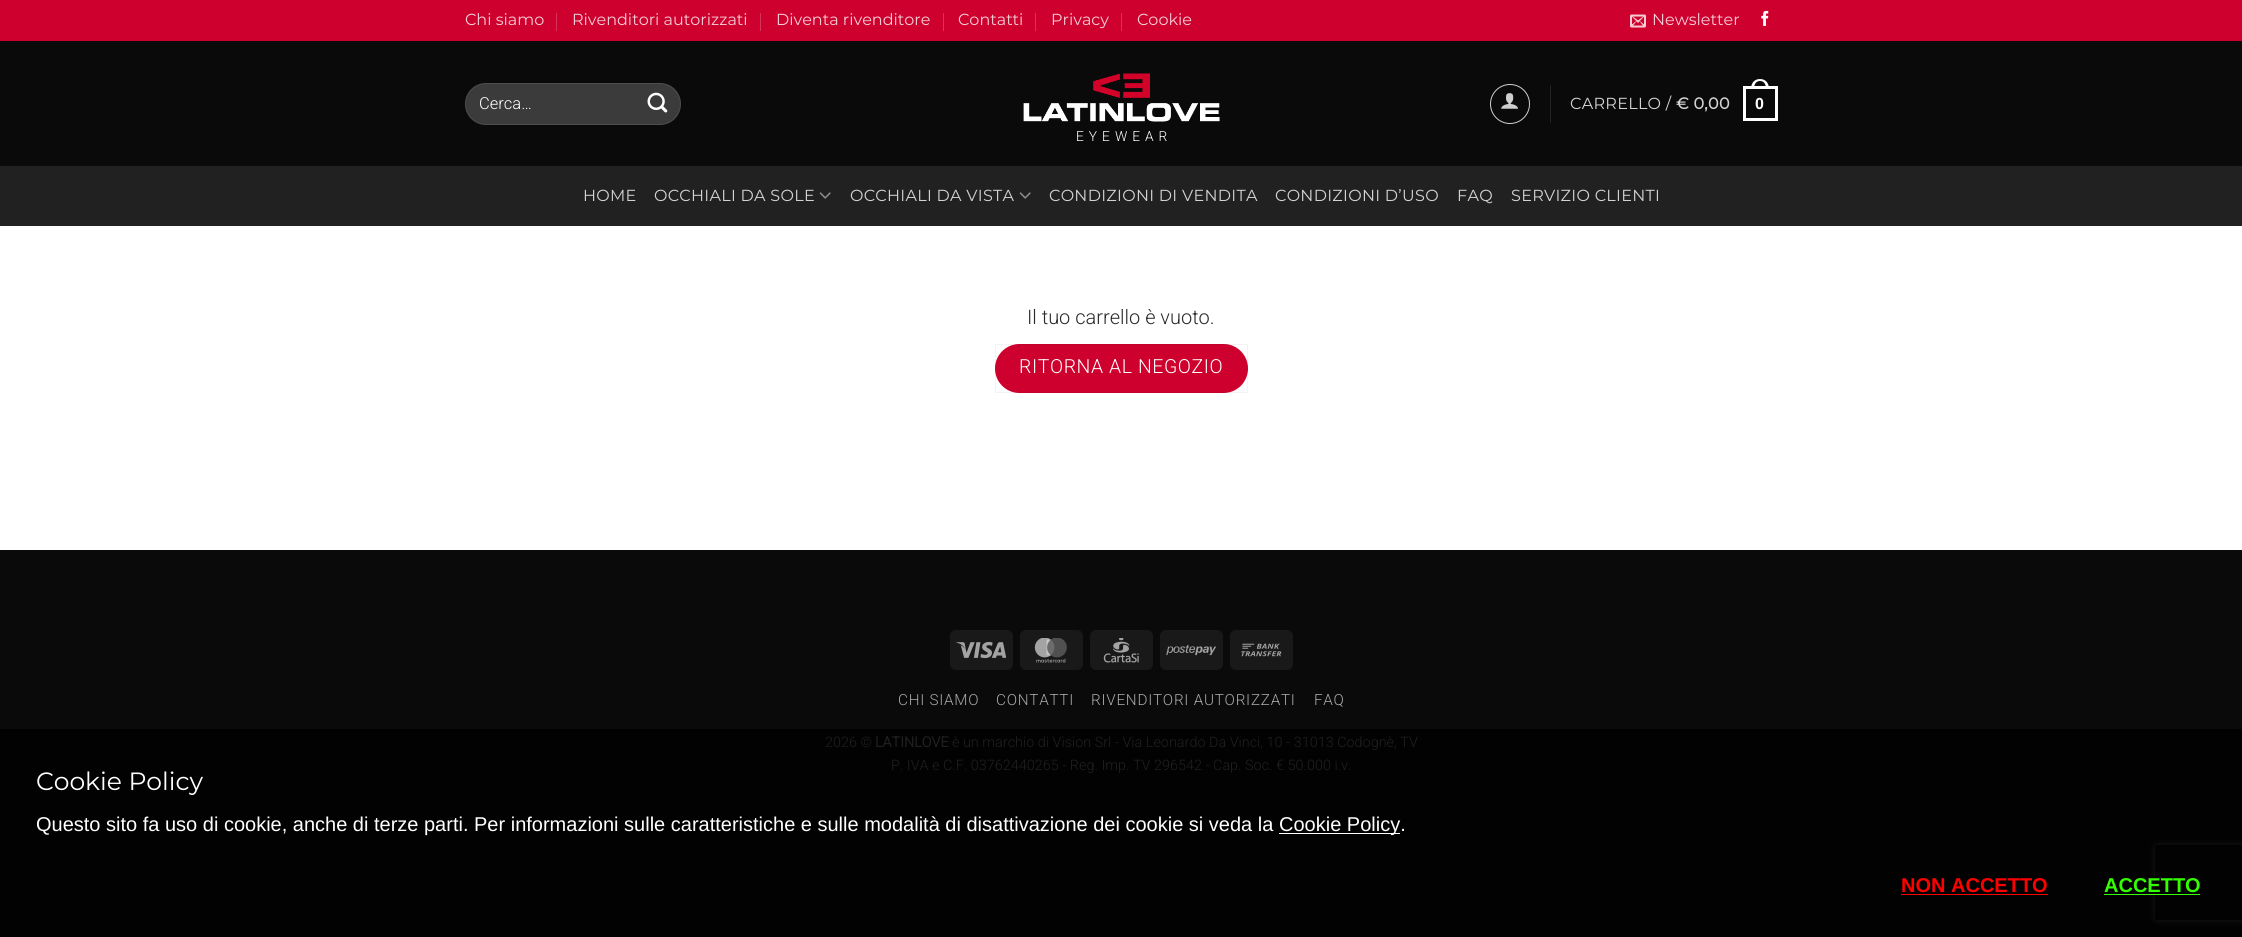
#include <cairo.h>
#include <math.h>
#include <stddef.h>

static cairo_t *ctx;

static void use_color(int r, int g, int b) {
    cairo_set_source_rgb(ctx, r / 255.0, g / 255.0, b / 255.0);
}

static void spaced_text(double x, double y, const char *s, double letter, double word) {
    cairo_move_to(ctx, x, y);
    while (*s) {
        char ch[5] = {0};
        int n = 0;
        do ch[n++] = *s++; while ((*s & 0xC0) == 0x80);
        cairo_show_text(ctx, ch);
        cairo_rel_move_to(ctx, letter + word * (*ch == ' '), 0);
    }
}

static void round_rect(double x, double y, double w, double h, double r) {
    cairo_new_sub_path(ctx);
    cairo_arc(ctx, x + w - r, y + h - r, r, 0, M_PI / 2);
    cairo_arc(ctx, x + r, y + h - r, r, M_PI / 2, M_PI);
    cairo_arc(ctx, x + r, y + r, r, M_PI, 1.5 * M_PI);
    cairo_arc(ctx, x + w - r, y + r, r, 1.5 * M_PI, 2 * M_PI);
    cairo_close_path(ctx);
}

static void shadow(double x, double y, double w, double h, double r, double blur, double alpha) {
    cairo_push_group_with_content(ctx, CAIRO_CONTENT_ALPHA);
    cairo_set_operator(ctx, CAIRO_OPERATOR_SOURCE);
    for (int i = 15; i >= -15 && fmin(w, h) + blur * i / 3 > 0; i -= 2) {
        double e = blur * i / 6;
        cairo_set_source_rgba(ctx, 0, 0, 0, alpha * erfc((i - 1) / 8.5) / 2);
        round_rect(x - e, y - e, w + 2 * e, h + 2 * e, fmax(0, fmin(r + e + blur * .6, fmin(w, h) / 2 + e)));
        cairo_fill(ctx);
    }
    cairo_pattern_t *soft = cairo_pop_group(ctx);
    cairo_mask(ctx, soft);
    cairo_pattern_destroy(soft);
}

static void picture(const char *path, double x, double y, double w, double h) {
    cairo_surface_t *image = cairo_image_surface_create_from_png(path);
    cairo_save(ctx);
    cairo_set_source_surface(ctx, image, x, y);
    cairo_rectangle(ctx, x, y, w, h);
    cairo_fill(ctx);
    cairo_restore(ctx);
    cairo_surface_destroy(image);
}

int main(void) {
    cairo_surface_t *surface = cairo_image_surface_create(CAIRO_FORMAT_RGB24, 2242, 937);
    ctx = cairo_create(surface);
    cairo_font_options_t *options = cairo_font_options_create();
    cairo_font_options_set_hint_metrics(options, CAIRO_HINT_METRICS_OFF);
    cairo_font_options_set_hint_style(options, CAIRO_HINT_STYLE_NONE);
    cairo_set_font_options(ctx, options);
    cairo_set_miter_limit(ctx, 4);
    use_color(2, 2, 2);
    cairo_paint(ctx);
    use_color(255, 255, 255);
    cairo_rectangle(ctx, 0, 226, 2242, 324);
    cairo_fill(ctx);
    use_color(206, 0, 46);
    cairo_rectangle(ctx, 0, 0, 2242, 41);
    cairo_fill(ctx);
    cairo_select_font_face(ctx, "Montserrat", CAIRO_FONT_SLANT_NORMAL, CAIRO_FONT_WEIGHT_NORMAL);
    cairo_set_font_size(ctx, 16);
    use_color(245, 204, 213);
    cairo_move_to(ctx, 465, 25);
    cairo_show_text(ctx, "Chi siamo");
    use_color(216, 51, 88);
    cairo_rectangle(ctx, 556, 13, 1, 18);
    cairo_fill(ctx);
    use_color(245, 204, 213);
    cairo_move_to(ctx, 572, 25);
    cairo_show_text(ctx, "Rivenditori autorizzati");
    use_color(216, 51, 88);
    cairo_rectangle(ctx, 760, 13, 1, 18);
    cairo_fill(ctx);
    use_color(245, 204, 213);
    cairo_move_to(ctx, 776, 25);
    cairo_show_text(ctx, "Diventa rivenditore");
    use_color(216, 51, 88);
    cairo_rectangle(ctx, 943, 13, 1, 18);
    cairo_fill(ctx);
    use_color(245, 204, 213);
    cairo_move_to(ctx, 958, 25);
    cairo_show_text(ctx, "Contatti");
    use_color(216, 51, 88);
    cairo_rectangle(ctx, 1035, 13, 1, 18);
    cairo_fill(ctx);
    use_color(245, 204, 213);
    cairo_move_to(ctx, 1051, 25);
    cairo_show_text(ctx, "Privacy");
    use_color(216, 51, 88);
    cairo_rectangle(ctx, 1121, 13, 1, 18);
    cairo_fill(ctx);
    use_color(245, 204, 213);
    cairo_move_to(ctx, 1137, 25);
    cairo_show_text(ctx, "Cookie");
    picture("img1.png", 1630, 14, 16, 14);
    cairo_move_to(ctx, 1652, 25);
    cairo_show_text(ctx, "Newsletter");
    picture("img2.png", 1761, 10, 8, 16);
    use_color(10, 10, 10);
    cairo_rectangle(ctx, 0, 41, 2242, 125);
    cairo_fill(ctx);
    use_color(59, 59, 59);
    round_rect(465, 83, 216, 42, 21);
    cairo_fill(ctx);
    round_rect(465.5, 83.5, 215, 41, 20.5);
    cairo_set_source_rgba(ctx, 1, 1, 1, 0.09);
    cairo_set_line_width(ctx, 1);
    cairo_stroke(ctx);
    cairo_select_font_face(ctx, "Roboto Light", CAIRO_FONT_SLANT_NORMAL, CAIRO_FONT_WEIGHT_NORMAL);
    cairo_set_font_size(ctx, 16.5);
    use_color(255, 255, 255);
    cairo_move_to(ctx, 479, 109);
    cairo_show_text(ctx, "Cerca…");
    picture("img3.png", 647, 92, 21, 21);
    cairo_arc(ctx, 1510, 104, 19.5, 0, 2 * M_PI);
    use_color(206, 206, 206);
    cairo_stroke(ctx);
    picture("img4.png", 1501, 93, 17, 16);
    use_color(35, 35, 35);
    cairo_rectangle(ctx, 1550, 85, 1, 38);
    cairo_fill(ctx);
    cairo_select_font_face(ctx, "Montserrat", CAIRO_FONT_SLANT_NORMAL, CAIRO_FONT_WEIGHT_NORMAL);
    cairo_set_font_size(ctx, 16);
    use_color(211, 211, 211);
    spaced_text(1570, 109, "CARRELLO /", 0.3, 0);
    cairo_select_font_face(ctx, "Montserrat", CAIRO_FONT_SLANT_NORMAL, CAIRO_FONT_WEIGHT_BOLD);
    spaced_text(1676, 109, "€ 0,00", 0.3, 0);
    cairo_rectangle(ctx, 1744.5, 87.5, 32, 32);
    use_color(255, 255, 255);
    cairo_set_line_width(ctx, 3);
    cairo_stroke(ctx);
    cairo_set_fill_rule(ctx, CAIRO_FILL_RULE_EVEN_ODD);
    cairo_new_path(ctx);
    cairo_move_to(ctx, 1760, 79);
    cairo_curve_to(ctx, 1766, 79, 1769, 83.5, 1769, 89);
    cairo_line_to(ctx, 1751, 89);
    cairo_curve_to(ctx, 1751, 83.5, 1754, 79, 1760, 79);
    cairo_close_path(ctx);
    cairo_move_to(ctx, 1760, 81);
    cairo_curve_to(ctx, 1764.5, 81, 1766, 85, 1766, 89);
    cairo_line_to(ctx, 1754, 89);
    cairo_curve_to(ctx, 1754, 85, 1755.5, 81, 1760, 81);
    cairo_close_path(ctx);
    cairo_fill(ctx);
    cairo_select_font_face(ctx, "Liberation Sans", CAIRO_FONT_SLANT_NORMAL, CAIRO_FONT_WEIGHT_BOLD);
    spaced_text(1755, 109, "0", 0.3, 0);
    picture("img5.png", 1023, 73, 197, 49);
    cairo_select_font_face(ctx, "Roboto Light", CAIRO_FONT_SLANT_NORMAL, CAIRO_FONT_WEIGHT_NORMAL);
    cairo_set_font_size(ctx, 13.75);
    spaced_text(1076, 141, "EYEWEAR", 5, 0);
    use_color(33, 33, 33);
    cairo_rectangle(ctx, 0, 166, 2242, 60);
    cairo_fill(ctx);
    cairo_select_font_face(ctx, "Montserrat", CAIRO_FONT_SLANT_NORMAL, CAIRO_FONT_WEIGHT_NORMAL);
    cairo_set_font_size(ctx, 16);
    use_color(211, 211, 211);
    spaced_text(583, 201, "HOME", 0.3, 0);
    spaced_text(654, 201, "OCCHIALI DA SOLE", 0.3, 0);
    picture("img6.png", 819, 192, 12, 7);
    spaced_text(850, 201, "OCCHIALI DA VISTA", 0.3, 0);
    picture("img6.png", 1019, 192, 12, 7);
    spaced_text(1049, 201, "CONDIZIONI DI VENDITA", 0.3, 0);
    spaced_text(1275, 201, "CONDIZIONI D’USO", 0.3, 0);
    spaced_text(1457, 201, "FAQ", 0.3, 0);
    spaced_text(1511, 201, "SERVIZIO CLIENTI", 0.3, 0);
    cairo_select_font_face(ctx, "Roboto Light", CAIRO_FONT_SLANT_NORMAL, CAIRO_FONT_WEIGHT_NORMAL);
    cairo_set_font_size(ctx, 20);
    use_color(42, 42, 42);
    cairo_move_to(ctx, 1027, 324);
    cairo_show_text(ctx, "Il tuo carrello è vuoto.");
    use_color(206, 0, 46);
    round_rect(995, 344, 253, 49, 24.5);
    cairo_fill(ctx);
    cairo_rectangle(ctx, 995.5, 344.5, 252, 48);
    cairo_set_source_rgba(ctx, 0, 0, 0, 0.05);
    cairo_set_line_width(ctx, 1);
    cairo_stroke(ctx);
    cairo_set_font_size(ctx, 19.4);
    use_color(255, 255, 255);
    spaced_text(1019, 373, "RITORNA AL NEGOZIO", 0.6, 0);
    use_color(10, 10, 10);
    cairo_rectangle(ctx, 0, 550, 2242, 179);
    cairo_fill(ctx);
    use_color(25, 25, 25);
    round_rect(950, 630, 63, 40, 6);
    cairo_fill(ctx);
    picture("img7.png", 956, 641, 50, 18);
    round_rect(1020, 630, 63, 40, 6);
    cairo_fill(ctx);
    picture("img8.png", 1034, 638, 33, 25);
    round_rect(1090, 630, 63, 40, 6);
    cairo_fill(ctx);
    picture("img9.png", 1103, 638, 36, 25);
    round_rect(1160, 630, 63, 40, 6);
    cairo_fill(ctx);
    picture("img10.png", 1166, 645, 50, 11);
    round_rect(1230, 630, 63, 40, 6);
    cairo_fill(ctx);
    picture("img11.png", 1241, 643, 41, 14);
    cairo_set_font_size(ctx, 15.25);
    use_color(167, 167, 167);
    spaced_text(898, 705, "CHI SIAMO", 0.75, 0);
    spaced_text(996, 705, "CONTATTI", 0.75, 0);
    spaced_text(1091, 705, "RIVENDITORI AUTORIZZATI", 0.75, 0);
    spaced_text(1314, 705, "FAQ", 0.75, 0);
    cairo_set_font_size(ctx, 14.4);
    use_color(31, 31, 31);
    cairo_move_to(ctx, 825, 747);
    cairo_show_text(ctx, "2026 ©");
    cairo_select_font_face(ctx, "Roboto", CAIRO_FONT_SLANT_NORMAL, CAIRO_FONT_WEIGHT_BOLD);
    cairo_move_to(ctx, 875, 747);
    cairo_show_text(ctx, "LATINLOVE");
    cairo_select_font_face(ctx, "Roboto Light", CAIRO_FONT_SLANT_NORMAL, CAIRO_FONT_WEIGHT_NORMAL);
    cairo_move_to(ctx, 952, 747);
    cairo_show_text(ctx, "è un marchio di Vision Srl - Via Leonardo Da Vinci, 10 - 31013 Codognè, TV");
    cairo_move_to(ctx, 891, 770);
    cairo_show_text(ctx, "P. IVA e C.F. 03762440265 - Reg. Imp. TV 296542 - Cap. Soc. € 50.000 i.v.");
    cairo_select_font_face(ctx, "Montserrat", CAIRO_FONT_SLANT_NORMAL, CAIRO_FONT_WEIGHT_NORMAL);
    cairo_set_font_size(ctx, 25);
    use_color(255, 255, 255);
    cairo_move_to(ctx, 36, 790);
    cairo_show_text(ctx, "Cookie Policy");
    cairo_select_font_face(ctx, "Liberation Sans", CAIRO_FONT_SLANT_NORMAL, CAIRO_FONT_WEIGHT_NORMAL);
    cairo_set_font_size(ctx, 20);
    cairo_move_to(ctx, 36, 831);
    cairo_show_text(ctx, "Questo sito fa uso di cookie, anche di terze parti. Per informazioni sulle caratteristiche e sulle modalità di disattivazione dei cookie si veda la");
    cairo_rectangle(ctx, 1279, 833, 121, 1);
    cairo_fill(ctx);
    cairo_move_to(ctx, 1279, 831);
    cairo_show_text(ctx, "Cookie Policy.");
    cairo_select_font_face(ctx, "Liberation Sans", CAIRO_FONT_SLANT_NORMAL, CAIRO_FONT_WEIGHT_BOLD);
    use_color(255, 0, 0);
    cairo_move_to(ctx, 1901, 892);
    cairo_show_text(ctx, "NON ACCETTO");
    cairo_rectangle(ctx, 1901, 894, 147, 1);
    cairo_fill(ctx);
    cairo_save(ctx);
    cairo_new_path(ctx);
    cairo_move_to(ctx, 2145, 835);
    cairo_line_to(ctx, 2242, 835);
    cairo_line_to(ctx, 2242, 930);
    cairo_line_to(ctx, 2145, 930);
    cairo_close_path(ctx);
    cairo_move_to(ctx, 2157.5, 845);
    cairo_line_to(ctx, 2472.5, 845);
    cairo_curve_to(ctx, 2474, 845, 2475, 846, 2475, 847.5);
    cairo_line_to(ctx, 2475, 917.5);
    cairo_curve_to(ctx, 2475, 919, 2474, 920, 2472.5, 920);
    cairo_line_to(ctx, 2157.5, 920);
    cairo_curve_to(ctx, 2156, 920, 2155, 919, 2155, 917.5);
    cairo_line_to(ctx, 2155, 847.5);
    cairo_curve_to(ctx, 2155, 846, 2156, 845, 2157.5, 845);
    cairo_close_path(ctx);
    cairo_clip(ctx);
    use_color(26, 26, 26);
    shadow(2155, 845, 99, 75, 2.5, 3, 1);
    cairo_restore(ctx);
    use_color(51, 255, 0);
    cairo_move_to(ctx, 2104, 892);
    cairo_show_text(ctx, "ACCETTO");
    cairo_rectangle(ctx, 2104, 894, 96, 1);
    cairo_fill(ctx);
    cairo_surface_write_to_png(surface, "result.png");
    cairo_font_options_destroy(options);
    cairo_destroy(ctx);
    cairo_surface_destroy(surface);
    return 0;
}
